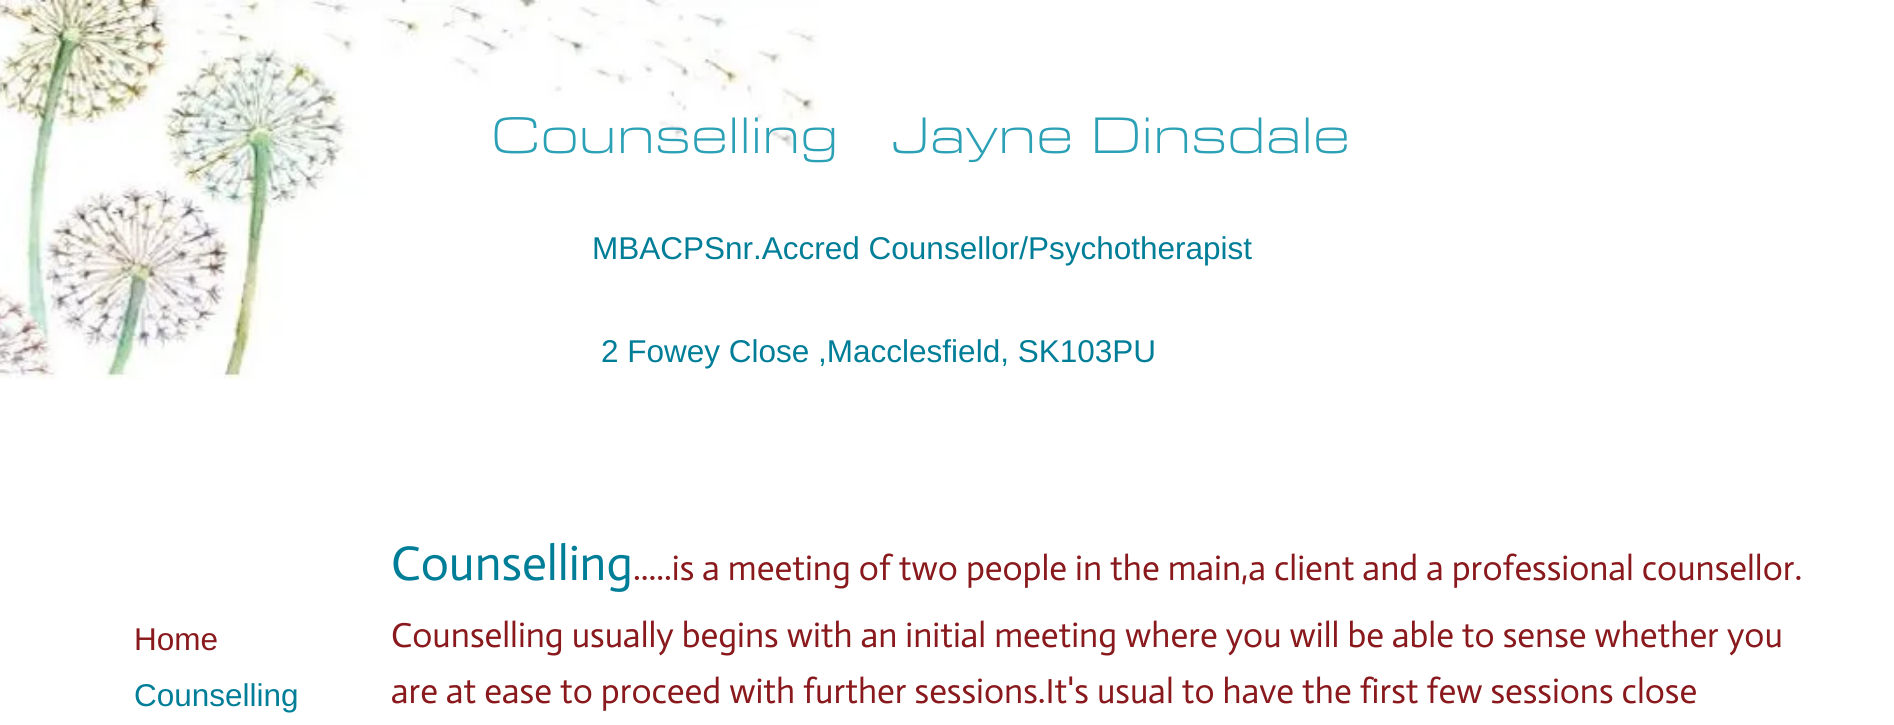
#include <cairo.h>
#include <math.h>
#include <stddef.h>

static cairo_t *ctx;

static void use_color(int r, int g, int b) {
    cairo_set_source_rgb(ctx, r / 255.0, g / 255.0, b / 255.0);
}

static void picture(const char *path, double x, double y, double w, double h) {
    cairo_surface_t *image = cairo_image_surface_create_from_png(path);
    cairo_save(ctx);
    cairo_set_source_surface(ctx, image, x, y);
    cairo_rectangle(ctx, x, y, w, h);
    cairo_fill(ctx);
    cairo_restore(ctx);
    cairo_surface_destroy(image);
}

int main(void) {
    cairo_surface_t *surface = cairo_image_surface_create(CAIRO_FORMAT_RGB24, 1894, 725);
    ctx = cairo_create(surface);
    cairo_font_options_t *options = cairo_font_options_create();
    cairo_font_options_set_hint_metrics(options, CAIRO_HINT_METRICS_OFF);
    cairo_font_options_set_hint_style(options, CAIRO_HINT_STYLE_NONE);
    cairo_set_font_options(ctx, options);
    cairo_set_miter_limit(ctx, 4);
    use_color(255, 255, 255);
    cairo_paint(ctx);
    picture("img1.png", 0, 0, 821, 380);
    cairo_select_font_face(ctx, "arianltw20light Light", CAIRO_FONT_SLANT_NORMAL, CAIRO_FONT_WEIGHT_NORMAL);
    cairo_set_font_size(ctx, 63);
    use_color(44, 161, 182);
    cairo_move_to(ctx, 491, 153);
    cairo_show_text(ctx, "Counselling   Jayne Dinsdale");
    cairo_select_font_face(ctx, "Liberation Sans", CAIRO_FONT_SLANT_NORMAL, CAIRO_FONT_WEIGHT_NORMAL);
    cairo_set_font_size(ctx, 31.5);
    use_color(0, 126, 152);
    cairo_move_to(ctx, 592, 259);
    cairo_show_text(ctx, "MBACPSnr.Accred Counsellor/Psychotherapist");
    cairo_move_to(ctx, 601, 362);
    cairo_show_text(ctx, "2 Fowey Close ,Macclesfield, SK103PU");
    use_color(137, 25, 28);
    cairo_move_to(ctx, 134, 650);
    cairo_show_text(ctx, "Home");
    use_color(0, 126, 152);
    cairo_move_to(ctx, 134, 706);
    cairo_show_text(ctx, "Counselling");
    cairo_select_font_face(ctx, "Actor", CAIRO_FONT_SLANT_NORMAL, CAIRO_FONT_WEIGHT_NORMAL);
    cairo_set_font_size(ctx, 49);
    cairo_move_to(ctx, 391, 580);
    cairo_show_text(ctx, "Counselling");
    cairo_set_font_size(ctx, 35);
    use_color(137, 25, 28);
    cairo_move_to(ctx, 633, 580);
    cairo_show_text(ctx, ".....is a meeting of two people in the main,a client and a professional counsellor.");
    cairo_move_to(ctx, 391, 647);
    cairo_show_text(ctx, "Counselling usually begins with an initial meeting where you will be able to sense whether you");
    cairo_move_to(ctx, 391, 703);
    cairo_show_text(ctx, "are at ease to proceed with further sessions.It's usual to have the first few sessions close");
    cairo_surface_write_to_png(surface, "result.png");
    cairo_font_options_destroy(options);
    cairo_destroy(ctx);
    cairo_surface_destroy(surface);
    return 0;
}
